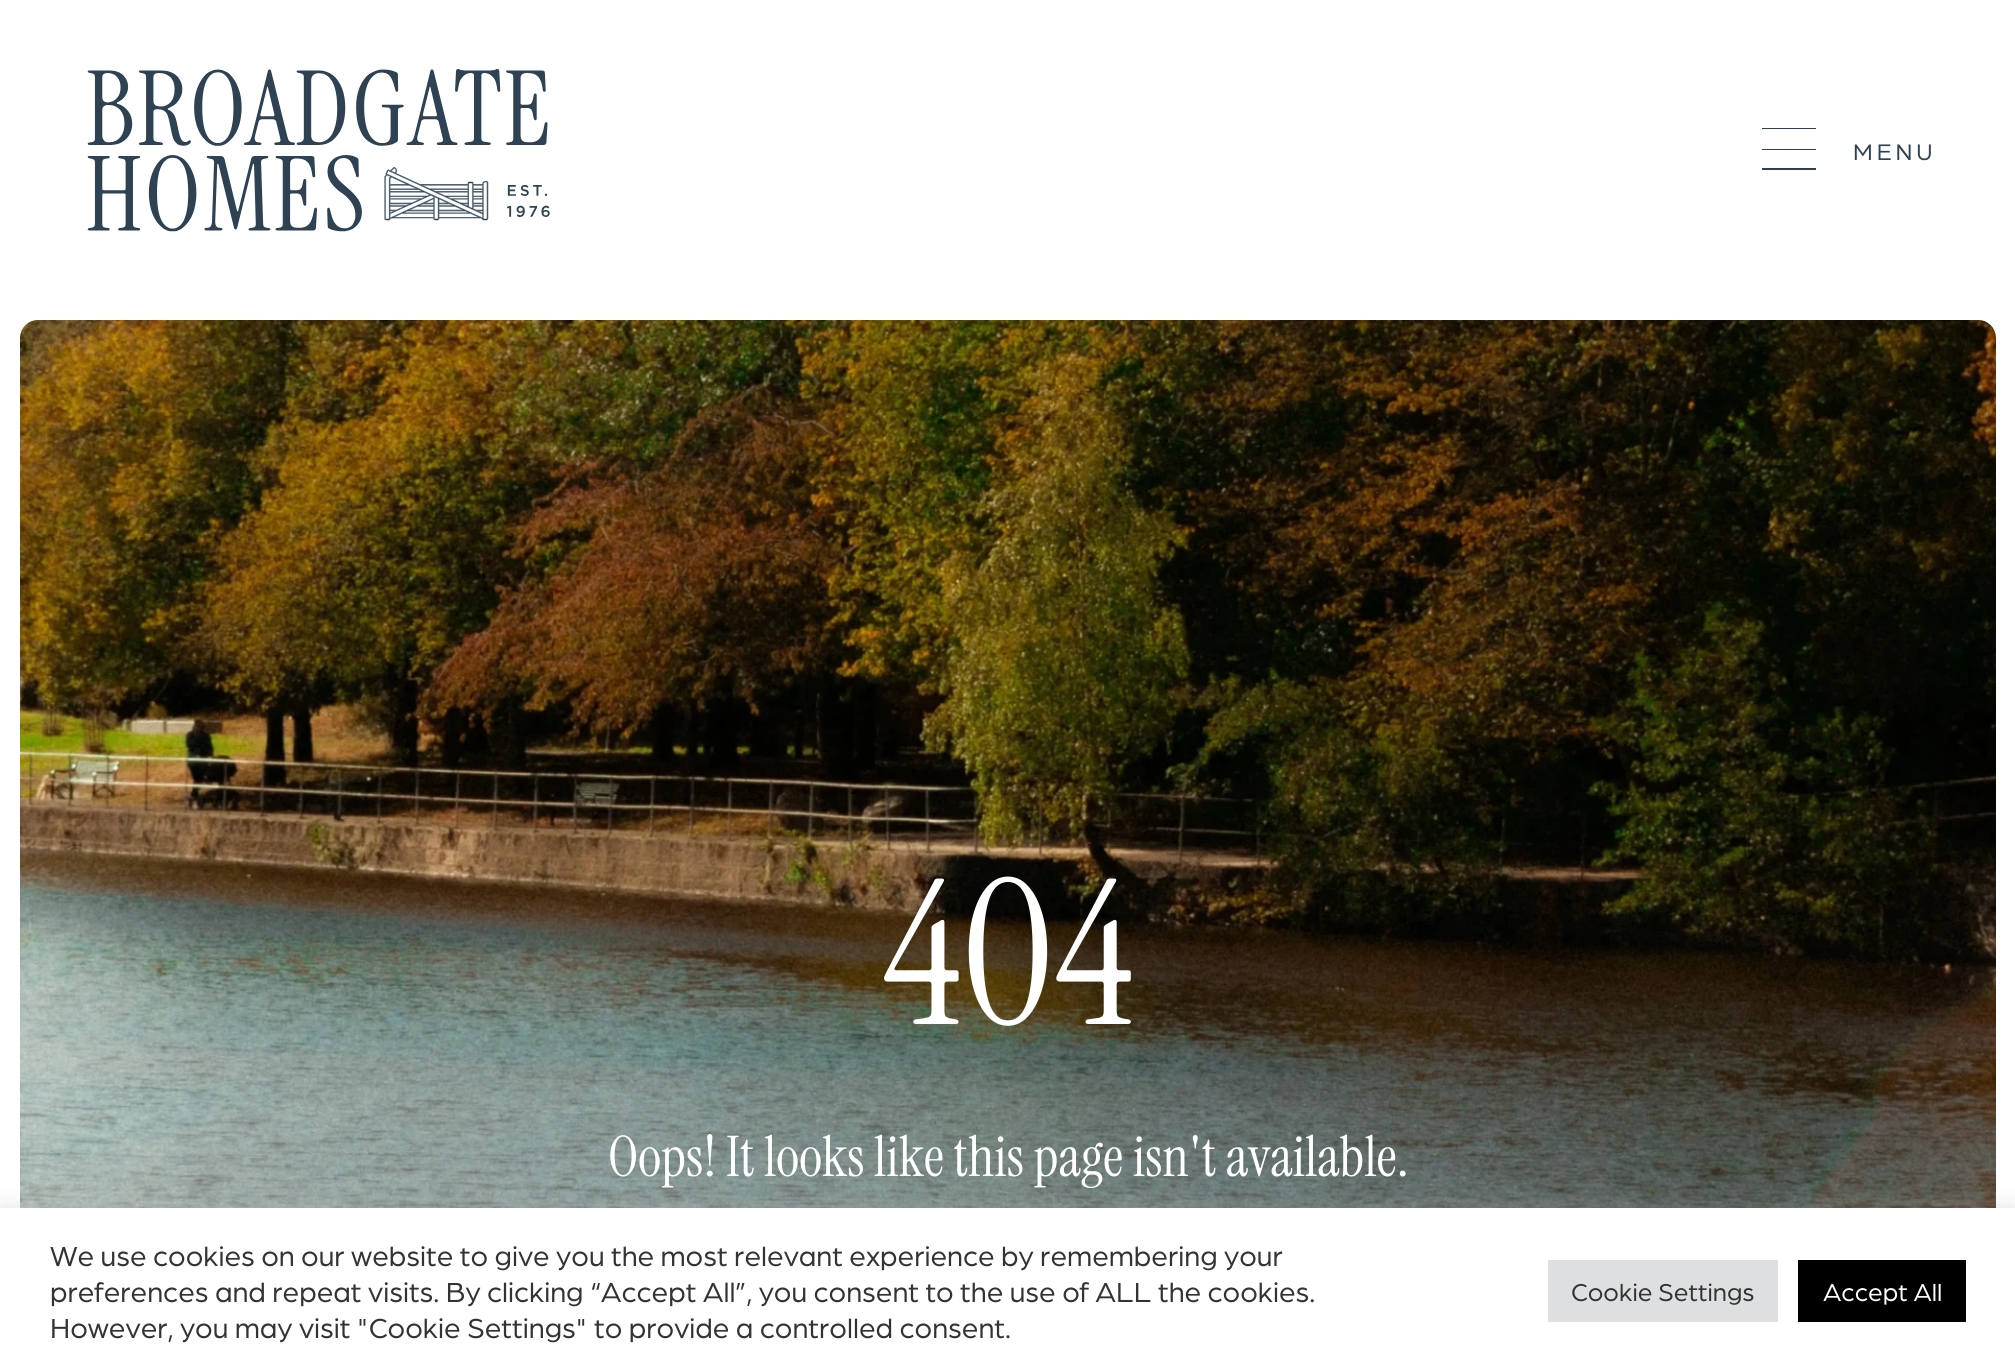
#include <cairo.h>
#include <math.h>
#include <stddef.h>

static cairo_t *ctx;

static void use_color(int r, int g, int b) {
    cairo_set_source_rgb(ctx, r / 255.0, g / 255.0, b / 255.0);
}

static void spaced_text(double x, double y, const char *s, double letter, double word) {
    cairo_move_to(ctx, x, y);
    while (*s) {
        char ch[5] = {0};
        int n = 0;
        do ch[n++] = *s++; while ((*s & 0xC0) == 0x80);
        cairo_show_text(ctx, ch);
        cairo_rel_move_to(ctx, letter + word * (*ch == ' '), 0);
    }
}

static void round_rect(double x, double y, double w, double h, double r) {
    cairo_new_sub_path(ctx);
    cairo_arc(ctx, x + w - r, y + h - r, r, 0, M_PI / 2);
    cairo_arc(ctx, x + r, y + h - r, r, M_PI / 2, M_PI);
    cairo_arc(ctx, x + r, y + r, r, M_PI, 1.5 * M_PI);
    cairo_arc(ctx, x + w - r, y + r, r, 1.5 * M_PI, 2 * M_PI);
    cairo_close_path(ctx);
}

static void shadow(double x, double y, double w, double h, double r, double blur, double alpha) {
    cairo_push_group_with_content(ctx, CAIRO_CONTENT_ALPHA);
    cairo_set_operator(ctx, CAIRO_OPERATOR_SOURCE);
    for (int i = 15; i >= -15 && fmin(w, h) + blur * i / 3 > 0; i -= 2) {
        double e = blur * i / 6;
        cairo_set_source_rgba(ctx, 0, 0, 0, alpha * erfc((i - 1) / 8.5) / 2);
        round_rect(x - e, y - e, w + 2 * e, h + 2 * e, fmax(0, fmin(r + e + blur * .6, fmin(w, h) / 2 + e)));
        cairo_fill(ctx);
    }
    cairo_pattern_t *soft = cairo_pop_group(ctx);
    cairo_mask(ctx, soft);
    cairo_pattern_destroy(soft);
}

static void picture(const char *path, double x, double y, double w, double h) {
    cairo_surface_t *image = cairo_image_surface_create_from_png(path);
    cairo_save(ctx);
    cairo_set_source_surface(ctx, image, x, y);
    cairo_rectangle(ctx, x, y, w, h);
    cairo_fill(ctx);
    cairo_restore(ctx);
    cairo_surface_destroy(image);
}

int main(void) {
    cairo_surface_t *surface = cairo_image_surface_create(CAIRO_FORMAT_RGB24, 2015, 1372);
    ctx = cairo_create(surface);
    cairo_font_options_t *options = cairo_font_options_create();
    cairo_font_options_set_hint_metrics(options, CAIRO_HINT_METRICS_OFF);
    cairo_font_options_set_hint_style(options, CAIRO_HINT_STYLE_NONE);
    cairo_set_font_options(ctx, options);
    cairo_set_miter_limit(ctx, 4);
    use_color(255, 255, 255);
    cairo_paint(ctx);
    picture("img1.png", 87, 69, 463, 163);
    use_color(46, 66, 84);
    cairo_rectangle(ctx, 1762, 128, 54, 1);
    cairo_fill(ctx);
    cairo_rectangle(ctx, 1762, 149, 54, 1);
    cairo_fill(ctx);
    cairo_rectangle(ctx, 1762, 168, 54, 2);
    cairo_fill(ctx);
    cairo_select_font_face(ctx, "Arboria", CAIRO_FONT_SLANT_NORMAL, CAIRO_FONT_WEIGHT_NORMAL);
    cairo_set_font_size(ctx, 24);
    spaced_text(1853, 160, "MENU", 4, 0);
    picture("img2.png", 20, 320, 1976, 888);
    cairo_select_font_face(ctx, "Instrument Serif", CAIRO_FONT_SLANT_NORMAL, CAIRO_FONT_WEIGHT_NORMAL);
    cairo_set_font_size(ctx, 202);
    use_color(255, 255, 255);
    cairo_move_to(ctx, 882, 1024);
    cairo_show_text(ctx, "404");
    cairo_set_font_size(ctx, 56);
    cairo_move_to(ctx, 608, 1176);
    cairo_show_text(ctx, "Oops! It looks like this page isn't available.");
    use_color(172, 171, 171);
    shadow(0, 1206, 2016, 164, 0, 10, 0.3);
    use_color(255, 255, 255);
    cairo_rectangle(ctx, 0, 1208, 2015, 164);
    cairo_fill(ctx);
    cairo_select_font_face(ctx, "Arboria", CAIRO_FONT_SLANT_NORMAL, CAIRO_FONT_WEIGHT_NORMAL);
    cairo_set_font_size(ctx, 29.35);
    use_color(51, 51, 51);
    cairo_move_to(ctx, 50, 1266);
    cairo_show_text(ctx, "We use cookies on our website to give you the most relevant experience by remembering your");
    cairo_move_to(ctx, 50, 1302);
    cairo_show_text(ctx, "preferences and repeat visits. By clicking “Accept All”, you consent to the use of ALL the cookies.");
    cairo_move_to(ctx, 50, 1338);
    cairo_show_text(ctx, "However, you may visit \"Cookie Settings\" to provide a controlled consent.");
    use_color(222, 223, 224);
    cairo_rectangle(ctx, 1548, 1260, 230, 62);
    cairo_fill(ctx);
    cairo_set_font_size(ctx, 26);
    use_color(51, 51, 51);
    cairo_move_to(ctx, 1571, 1301);
    cairo_show_text(ctx, "Cookie Settings");
    use_color(0, 0, 0);
    cairo_rectangle(ctx, 1798, 1260, 168, 62);
    cairo_fill(ctx);
    use_color(255, 255, 255);
    cairo_move_to(ctx, 1823, 1301);
    cairo_show_text(ctx, "Accept All");
    cairo_surface_write_to_png(surface, "result.png");
    cairo_font_options_destroy(options);
    cairo_destroy(ctx);
    cairo_surface_destroy(surface);
    return 0;
}
